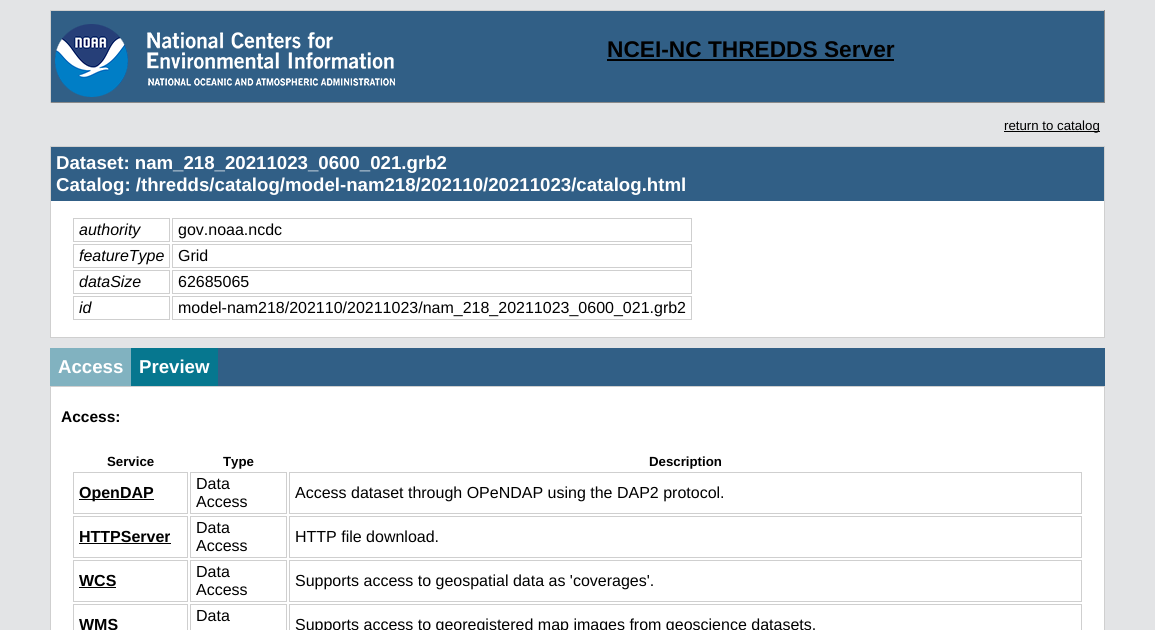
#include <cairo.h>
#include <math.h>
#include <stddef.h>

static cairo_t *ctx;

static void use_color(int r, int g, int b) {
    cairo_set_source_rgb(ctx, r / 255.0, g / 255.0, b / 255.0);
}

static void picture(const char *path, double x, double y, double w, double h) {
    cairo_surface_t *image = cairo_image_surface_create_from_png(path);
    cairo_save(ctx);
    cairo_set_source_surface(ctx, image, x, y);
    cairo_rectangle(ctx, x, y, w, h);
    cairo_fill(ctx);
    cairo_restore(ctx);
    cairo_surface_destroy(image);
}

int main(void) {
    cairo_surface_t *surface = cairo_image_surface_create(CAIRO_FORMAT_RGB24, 1155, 630);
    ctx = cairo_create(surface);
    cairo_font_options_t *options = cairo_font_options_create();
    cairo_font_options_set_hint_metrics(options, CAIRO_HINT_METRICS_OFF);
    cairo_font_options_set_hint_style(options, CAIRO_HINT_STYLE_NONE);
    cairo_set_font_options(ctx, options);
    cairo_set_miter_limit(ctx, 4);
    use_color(227, 228, 230);
    cairo_paint(ctx);
    use_color(49, 95, 134);
    cairo_rectangle(ctx, 51, 11, 1053, 91);
    cairo_fill(ctx);
    use_color(207, 207, 207);
    cairo_rectangle(ctx, 50, 10, 1055, 1);
    cairo_fill(ctx);
    use_color(138, 138, 138);
    cairo_rectangle(ctx, 1104, 10, 1, 93);
    cairo_fill(ctx);
    cairo_rectangle(ctx, 50, 102, 1055, 1);
    cairo_fill(ctx);
    use_color(207, 207, 207);
    cairo_rectangle(ctx, 50, 10, 1, 93);
    cairo_fill(ctx);
    picture("img1.png", 55, 24, 340, 73);
    cairo_select_font_face(ctx, "Liberation Sans", CAIRO_FONT_SLANT_NORMAL, CAIRO_FONT_WEIGHT_BOLD);
    cairo_set_font_size(ctx, 22.7);
    use_color(0, 0, 0);
    cairo_move_to(ctx, 607, 57);
    cairo_show_text(ctx, "NCEI-NC THREDDS Server");
    cairo_rectangle(ctx, 607, 59, 287, 2);
    cairo_fill(ctx);
    cairo_rectangle(ctx, 1004, 131, 96, 1);
    cairo_fill(ctx);
    cairo_select_font_face(ctx, "Liberation Sans", CAIRO_FONT_SLANT_NORMAL, CAIRO_FONT_WEIGHT_NORMAL);
    cairo_set_font_size(ctx, 13.25);
    cairo_move_to(ctx, 1004, 130);
    cairo_show_text(ctx, "return to catalog");
    use_color(255, 255, 255);
    cairo_rectangle(ctx, 51, 201, 1053, 136);
    cairo_fill(ctx);
    cairo_rectangle(ctx, 50.5, 146.5, 1054, 191);
    use_color(207, 207, 207);
    cairo_set_line_width(ctx, 1);
    cairo_stroke(ctx);
    use_color(49, 95, 134);
    cairo_rectangle(ctx, 51, 147, 1053, 54);
    cairo_fill(ctx);
    cairo_select_font_face(ctx, "Liberation Sans", CAIRO_FONT_SLANT_NORMAL, CAIRO_FONT_WEIGHT_BOLD);
    cairo_set_font_size(ctx, 18.65);
    use_color(255, 255, 255);
    cairo_move_to(ctx, 56, 169);
    cairo_show_text(ctx, "Dataset: nam_218_20211023_0600_021.grb2");
    cairo_move_to(ctx, 56, 191);
    cairo_show_text(ctx, "Catalog: /thredds/catalog/model-nam218/202110/20211023/catalog.html");
    cairo_rectangle(ctx, 73.5, 218.5, 96, 23);
    use_color(207, 207, 207);
    cairo_stroke(ctx);
    cairo_select_font_face(ctx, "Liberation Sans", CAIRO_FONT_SLANT_ITALIC, CAIRO_FONT_WEIGHT_NORMAL);
    cairo_set_font_size(ctx, 16);
    use_color(0, 0, 0);
    cairo_move_to(ctx, 79, 235);
    cairo_show_text(ctx, "authority");
    cairo_rectangle(ctx, 172.5, 218.5, 519, 23);
    use_color(207, 207, 207);
    cairo_stroke(ctx);
    cairo_select_font_face(ctx, "Liberation Sans", CAIRO_FONT_SLANT_NORMAL, CAIRO_FONT_WEIGHT_NORMAL);
    use_color(0, 0, 0);
    cairo_move_to(ctx, 178, 235);
    cairo_show_text(ctx, "gov.noaa.ncdc");
    cairo_rectangle(ctx, 73.5, 244.5, 96, 23);
    use_color(207, 207, 207);
    cairo_stroke(ctx);
    cairo_select_font_face(ctx, "Liberation Sans", CAIRO_FONT_SLANT_ITALIC, CAIRO_FONT_WEIGHT_NORMAL);
    use_color(0, 0, 0);
    cairo_move_to(ctx, 79, 261);
    cairo_show_text(ctx, "featureType");
    cairo_rectangle(ctx, 172.5, 244.5, 519, 23);
    use_color(207, 207, 207);
    cairo_stroke(ctx);
    cairo_select_font_face(ctx, "Liberation Sans", CAIRO_FONT_SLANT_NORMAL, CAIRO_FONT_WEIGHT_NORMAL);
    use_color(0, 0, 0);
    cairo_move_to(ctx, 178, 261);
    cairo_show_text(ctx, "Grid");
    cairo_rectangle(ctx, 73.5, 270.5, 96, 23);
    use_color(207, 207, 207);
    cairo_stroke(ctx);
    cairo_select_font_face(ctx, "Liberation Sans", CAIRO_FONT_SLANT_ITALIC, CAIRO_FONT_WEIGHT_NORMAL);
    use_color(0, 0, 0);
    cairo_move_to(ctx, 79, 287);
    cairo_show_text(ctx, "dataSize");
    cairo_rectangle(ctx, 172.5, 270.5, 519, 23);
    use_color(207, 207, 207);
    cairo_stroke(ctx);
    cairo_select_font_face(ctx, "Liberation Sans", CAIRO_FONT_SLANT_NORMAL, CAIRO_FONT_WEIGHT_NORMAL);
    use_color(0, 0, 0);
    cairo_move_to(ctx, 178, 287);
    cairo_show_text(ctx, "62685065");
    cairo_rectangle(ctx, 73.5, 296.5, 96, 23);
    use_color(207, 207, 207);
    cairo_stroke(ctx);
    cairo_select_font_face(ctx, "Liberation Sans", CAIRO_FONT_SLANT_ITALIC, CAIRO_FONT_WEIGHT_NORMAL);
    use_color(0, 0, 0);
    cairo_move_to(ctx, 79, 313);
    cairo_show_text(ctx, "id");
    cairo_rectangle(ctx, 172.5, 296.5, 519, 23);
    use_color(207, 207, 207);
    cairo_stroke(ctx);
    cairo_select_font_face(ctx, "Liberation Sans", CAIRO_FONT_SLANT_NORMAL, CAIRO_FONT_WEIGHT_NORMAL);
    use_color(0, 0, 0);
    cairo_move_to(ctx, 178, 313);
    cairo_show_text(ctx, "model-nam218/202110/20211023/nam_218_20211023_0600_021.grb2");
    use_color(49, 95, 134);
    cairo_rectangle(ctx, 218, 348, 887, 38);
    cairo_fill(ctx);
    use_color(129, 178, 192);
    cairo_rectangle(ctx, 50, 348, 81, 38);
    cairo_fill(ctx);
    cairo_select_font_face(ctx, "Liberation Sans", CAIRO_FONT_SLANT_NORMAL, CAIRO_FONT_WEIGHT_BOLD);
    cairo_set_font_size(ctx, 18.65);
    use_color(255, 255, 255);
    cairo_move_to(ctx, 58, 373);
    cairo_show_text(ctx, "Access");
    use_color(6, 119, 143);
    cairo_rectangle(ctx, 131, 348, 87, 38);
    cairo_fill(ctx);
    use_color(255, 255, 255);
    cairo_move_to(ctx, 139, 373);
    cairo_show_text(ctx, "Preview");
    cairo_rectangle(ctx, 50.5, 386.5, 1054, 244);
    cairo_fill_preserve(ctx);
    use_color(207, 207, 207);
    cairo_stroke(ctx);
    cairo_set_font_size(ctx, 15.5);
    use_color(0, 0, 0);
    cairo_move_to(ctx, 61, 422);
    cairo_show_text(ctx, "Access:");
    cairo_set_font_size(ctx, 13.25);
    cairo_move_to(ctx, 107, 466);
    cairo_show_text(ctx, "Service");
    cairo_move_to(ctx, 223, 466);
    cairo_show_text(ctx, "Type");
    cairo_move_to(ctx, 649, 466);
    cairo_show_text(ctx, "Description");
    cairo_rectangle(ctx, 73.5, 472.5, 114, 41);
    use_color(207, 207, 207);
    cairo_stroke(ctx);
    use_color(0, 0, 0);
    cairo_rectangle(ctx, 79, 499, 75, 1);
    cairo_fill(ctx);
    cairo_set_font_size(ctx, 16);
    cairo_move_to(ctx, 79, 498);
    cairo_show_text(ctx, "OpenDAP");
    cairo_rectangle(ctx, 190.5, 472.5, 96, 41);
    use_color(207, 207, 207);
    cairo_stroke(ctx);
    cairo_select_font_face(ctx, "Liberation Sans", CAIRO_FONT_SLANT_NORMAL, CAIRO_FONT_WEIGHT_NORMAL);
    use_color(0, 0, 0);
    cairo_move_to(ctx, 196, 489);
    cairo_show_text(ctx, "Data");
    cairo_move_to(ctx, 196, 507);
    cairo_show_text(ctx, "Access");
    cairo_rectangle(ctx, 289.5, 472.5, 792, 41);
    use_color(207, 207, 207);
    cairo_stroke(ctx);
    use_color(0, 0, 0);
    cairo_move_to(ctx, 295, 498);
    cairo_show_text(ctx, "Access dataset through OPeNDAP using the DAP2 protocol.");
    cairo_rectangle(ctx, 73.5, 516.5, 114, 41);
    use_color(207, 207, 207);
    cairo_stroke(ctx);
    cairo_select_font_face(ctx, "Liberation Sans", CAIRO_FONT_SLANT_NORMAL, CAIRO_FONT_WEIGHT_BOLD);
    use_color(0, 0, 0);
    cairo_move_to(ctx, 79, 542);
    cairo_show_text(ctx, "HTTPServer");
    cairo_rectangle(ctx, 79, 543, 92, 1);
    cairo_fill(ctx);
    cairo_rectangle(ctx, 190.5, 516.5, 96, 41);
    use_color(207, 207, 207);
    cairo_stroke(ctx);
    cairo_select_font_face(ctx, "Liberation Sans", CAIRO_FONT_SLANT_NORMAL, CAIRO_FONT_WEIGHT_NORMAL);
    use_color(0, 0, 0);
    cairo_move_to(ctx, 196, 533);
    cairo_show_text(ctx, "Data");
    cairo_move_to(ctx, 196, 551);
    cairo_show_text(ctx, "Access");
    cairo_rectangle(ctx, 289.5, 516.5, 792, 41);
    use_color(207, 207, 207);
    cairo_stroke(ctx);
    use_color(0, 0, 0);
    cairo_move_to(ctx, 295, 542);
    cairo_show_text(ctx, "HTTP file download.");
    cairo_rectangle(ctx, 73.5, 560.5, 114, 41);
    use_color(207, 207, 207);
    cairo_stroke(ctx);
    cairo_select_font_face(ctx, "Liberation Sans", CAIRO_FONT_SLANT_NORMAL, CAIRO_FONT_WEIGHT_BOLD);
    use_color(0, 0, 0);
    cairo_move_to(ctx, 79, 586);
    cairo_show_text(ctx, "WCS");
    cairo_rectangle(ctx, 79, 587, 37, 1);
    cairo_fill(ctx);
    cairo_rectangle(ctx, 190.5, 560.5, 96, 41);
    use_color(207, 207, 207);
    cairo_stroke(ctx);
    cairo_select_font_face(ctx, "Liberation Sans", CAIRO_FONT_SLANT_NORMAL, CAIRO_FONT_WEIGHT_NORMAL);
    use_color(0, 0, 0);
    cairo_move_to(ctx, 196, 577);
    cairo_show_text(ctx, "Data");
    cairo_move_to(ctx, 196, 595);
    cairo_show_text(ctx, "Access");
    cairo_rectangle(ctx, 289.5, 560.5, 792, 41);
    use_color(207, 207, 207);
    cairo_stroke(ctx);
    use_color(0, 0, 0);
    cairo_move_to(ctx, 295, 586);
    cairo_show_text(ctx, "Supports access to geospatial data as 'coverages'.");
    cairo_rectangle(ctx, 190.5, 604.5, 96, 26);
    use_color(207, 207, 207);
    cairo_stroke(ctx);
    use_color(0, 0, 0);
    cairo_move_to(ctx, 196, 621);
    cairo_show_text(ctx, "Data");
    cairo_rectangle(ctx, 73.5, 604.5, 114, 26);
    use_color(207, 207, 207);
    cairo_stroke(ctx);
    cairo_select_font_face(ctx, "Liberation Sans", CAIRO_FONT_SLANT_NORMAL, CAIRO_FONT_WEIGHT_BOLD);
    use_color(0, 0, 0);
    cairo_move_to(ctx, 79, 630);
    cairo_show_text(ctx, "WMS");
    cairo_rectangle(ctx, 289.5, 604.5, 792, 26);
    use_color(207, 207, 207);
    cairo_stroke(ctx);
    cairo_select_font_face(ctx, "Liberation Sans", CAIRO_FONT_SLANT_NORMAL, CAIRO_FONT_WEIGHT_NORMAL);
    use_color(0, 0, 0);
    cairo_move_to(ctx, 295, 630);
    cairo_show_text(ctx, "Supports access to georegistered map images from geoscience datasets.");
    cairo_surface_write_to_png(surface, "result.png");
    cairo_font_options_destroy(options);
    cairo_destroy(ctx);
    cairo_surface_destroy(surface);
    return 0;
}
